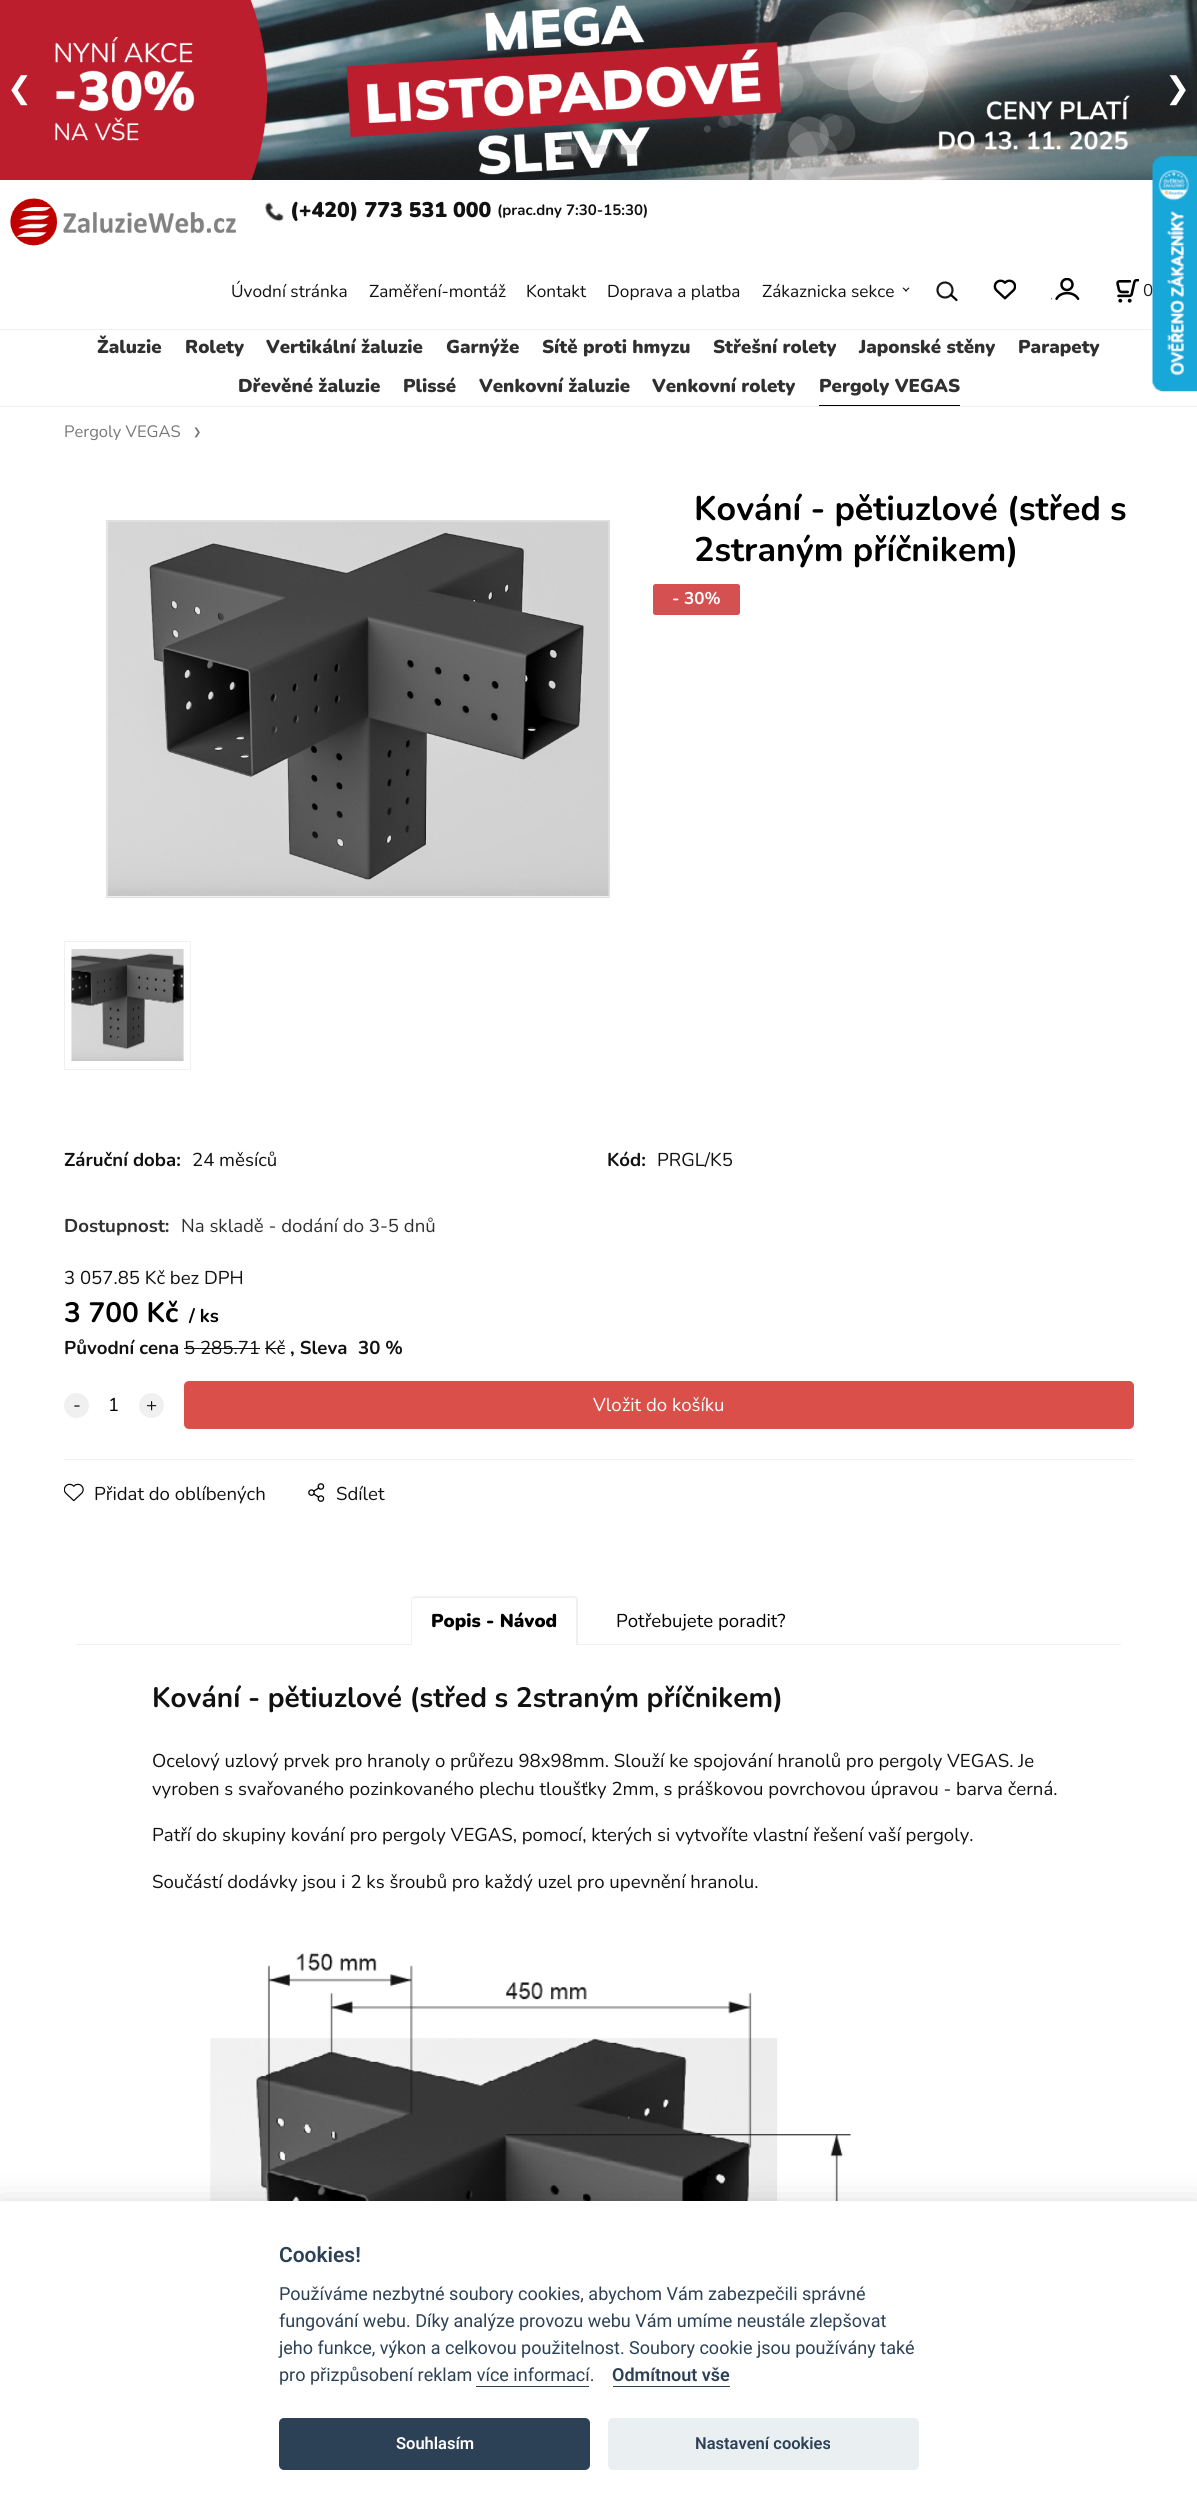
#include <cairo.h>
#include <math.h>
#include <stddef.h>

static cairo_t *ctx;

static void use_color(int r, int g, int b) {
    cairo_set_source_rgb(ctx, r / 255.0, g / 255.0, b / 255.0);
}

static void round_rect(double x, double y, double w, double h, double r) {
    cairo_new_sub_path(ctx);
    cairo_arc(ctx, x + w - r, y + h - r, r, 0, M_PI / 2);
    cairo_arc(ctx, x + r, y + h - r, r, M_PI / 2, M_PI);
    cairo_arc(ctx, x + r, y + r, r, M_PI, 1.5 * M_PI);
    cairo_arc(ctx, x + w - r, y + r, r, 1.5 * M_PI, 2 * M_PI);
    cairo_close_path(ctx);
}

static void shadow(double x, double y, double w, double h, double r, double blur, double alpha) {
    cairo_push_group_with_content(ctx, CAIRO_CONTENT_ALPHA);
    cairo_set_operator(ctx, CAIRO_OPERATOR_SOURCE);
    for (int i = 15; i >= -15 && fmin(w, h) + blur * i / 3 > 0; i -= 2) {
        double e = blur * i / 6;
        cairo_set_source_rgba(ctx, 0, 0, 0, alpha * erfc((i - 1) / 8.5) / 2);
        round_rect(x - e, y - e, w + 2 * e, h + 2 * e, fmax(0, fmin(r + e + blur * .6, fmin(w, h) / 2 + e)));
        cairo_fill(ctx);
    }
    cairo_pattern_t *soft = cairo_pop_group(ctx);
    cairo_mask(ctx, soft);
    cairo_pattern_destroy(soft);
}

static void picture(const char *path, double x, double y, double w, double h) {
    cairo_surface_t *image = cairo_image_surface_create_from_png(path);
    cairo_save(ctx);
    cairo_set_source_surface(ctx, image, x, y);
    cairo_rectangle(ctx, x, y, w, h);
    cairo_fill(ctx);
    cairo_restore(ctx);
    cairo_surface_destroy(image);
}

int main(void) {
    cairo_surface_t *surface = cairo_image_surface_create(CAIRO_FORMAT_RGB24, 1197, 2510);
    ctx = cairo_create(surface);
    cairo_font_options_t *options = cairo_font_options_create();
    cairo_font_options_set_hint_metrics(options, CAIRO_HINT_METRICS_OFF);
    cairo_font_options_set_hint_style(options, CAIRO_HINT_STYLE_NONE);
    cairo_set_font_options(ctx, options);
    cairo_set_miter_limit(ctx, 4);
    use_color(255, 255, 255);
    cairo_paint(ctx);
    picture("img1.png", 0, 0, 1197, 180);
    cairo_select_font_face(ctx, "DejaVu Sans", CAIRO_FONT_SLANT_NORMAL, CAIRO_FONT_WEIGHT_NORMAL);
    cairo_set_font_size(ctx, 30);
    use_color(255, 255, 255);
    cairo_move_to(ctx, 7, 98);
    cairo_show_text(ctx, "❮");
    cairo_move_to(ctx, 1165, 98);
    cairo_show_text(ctx, "❯");
    cairo_save(ctx);
    cairo_set_fill_rule(ctx, CAIRO_FILL_RULE_EVEN_ODD);
    cairo_new_path(ctx);
    cairo_move_to(ctx, 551, 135);
    cairo_line_to(ctx, 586, 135);
    cairo_line_to(ctx, 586, 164);
    cairo_line_to(ctx, 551, 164);
    cairo_close_path(ctx);
    cairo_move_to(ctx, 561, 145);
    cairo_line_to(ctx, 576, 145);
    cairo_line_to(ctx, 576, 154);
    cairo_line_to(ctx, 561, 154);
    cairo_close_path(ctx);
    cairo_clip(ctx);
    use_color(255, 255, 255);
    shadow(561, 145, 15, 9, 0, 3, 0.7);
    cairo_restore(ctx);
    cairo_set_source_rgba(ctx, 0.439, 0.439, 0.439, 0.7);
    cairo_rectangle(ctx, 561, 145, 15, 9);
    cairo_fill(ctx);
    cairo_save(ctx);
    cairo_set_fill_rule(ctx, CAIRO_FILL_RULE_EVEN_ODD);
    cairo_new_path(ctx);
    cairo_move_to(ctx, 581, 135);
    cairo_line_to(ctx, 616, 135);
    cairo_line_to(ctx, 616, 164);
    cairo_line_to(ctx, 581, 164);
    cairo_close_path(ctx);
    cairo_move_to(ctx, 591, 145);
    cairo_line_to(ctx, 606, 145);
    cairo_line_to(ctx, 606, 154);
    cairo_line_to(ctx, 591, 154);
    cairo_close_path(ctx);
    cairo_clip(ctx);
    use_color(255, 255, 255);
    shadow(591, 145, 15, 9, 0, 3, 0.7);
    cairo_restore(ctx);
    cairo_set_source_rgba(ctx, 0.867, 0.867, 0.867, 0.7);
    cairo_rectangle(ctx, 591, 145, 15, 9);
    cairo_fill(ctx);
    cairo_save(ctx);
    cairo_set_fill_rule(ctx, CAIRO_FILL_RULE_EVEN_ODD);
    cairo_new_path(ctx);
    cairo_move_to(ctx, 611, 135);
    cairo_line_to(ctx, 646, 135);
    cairo_line_to(ctx, 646, 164);
    cairo_line_to(ctx, 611, 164);
    cairo_close_path(ctx);
    cairo_move_to(ctx, 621, 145);
    cairo_line_to(ctx, 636, 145);
    cairo_line_to(ctx, 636, 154);
    cairo_line_to(ctx, 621, 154);
    cairo_close_path(ctx);
    cairo_clip(ctx);
    use_color(255, 255, 255);
    shadow(621, 145, 15, 9, 0, 3, 0.7);
    cairo_restore(ctx);
    cairo_rectangle(ctx, 621, 145, 15, 9);
    cairo_fill(ctx);
    picture("img2.png", 10, 198, 226, 48);
    picture("img3.png", 265, 202, 19, 20);
    cairo_select_font_face(ctx, "Nunito Black", CAIRO_FONT_SLANT_NORMAL, CAIRO_FONT_WEIGHT_NORMAL);
    cairo_set_font_size(ctx, 21.25);
    use_color(17, 17, 17);
    cairo_move_to(ctx, 290, 217);
    cairo_show_text(ctx, "(+420) 773 531 000");
    cairo_select_font_face(ctx, "Nunito", CAIRO_FONT_SLANT_NORMAL, CAIRO_FONT_WEIGHT_BOLD);
    cairo_set_font_size(ctx, 15);
    cairo_move_to(ctx, 497, 215);
    cairo_show_text(ctx, "(prac.dny 7:30-15:30)");
    use_color(240, 240, 240);
    cairo_rectangle(ctx, 0, 329, 1153, 1);
    cairo_fill(ctx);
    cairo_rectangle(ctx, 0, 406, 1197, 1);
    cairo_fill(ctx);
    cairo_select_font_face(ctx, "Nunito", CAIRO_FONT_SLANT_NORMAL, CAIRO_FONT_WEIGHT_NORMAL);
    cairo_set_font_size(ctx, 17.25);
    use_color(17, 17, 17);
    cairo_move_to(ctx, 231, 297);
    cairo_show_text(ctx, "Úvodní stránka");
    cairo_move_to(ctx, 369, 297);
    cairo_show_text(ctx, "Zaměření-montáž");
    cairo_move_to(ctx, 526, 297);
    cairo_show_text(ctx, "Kontakt");
    cairo_move_to(ctx, 607, 297);
    cairo_show_text(ctx, "Doprava a platba");
    cairo_move_to(ctx, 762, 297);
    cairo_show_text(ctx, "Zákaznicka sekce");
    use_color(0, 0, 0);
    cairo_new_path(ctx);
    cairo_move_to(ctx, 905, 291);
    cairo_line_to(ctx, 908.5, 287.5);
    cairo_line_to(ctx, 909.5, 288);
    cairo_line_to(ctx, 906, 291.5);
    cairo_close_path(ctx);
    cairo_fill(ctx);
    cairo_new_path(ctx);
    cairo_move_to(ctx, 902.5, 288);
    cairo_line_to(ctx, 903.5, 287.5);
    cairo_line_to(ctx, 907, 291);
    cairo_line_to(ctx, 906, 291.5);
    cairo_close_path(ctx);
    cairo_fill(ctx);
    cairo_arc(ctx, 945, 290, 7.5, 0, 2 * M_PI);
    use_color(25, 25, 25);
    cairo_set_line_width(ctx, 2.2);
    cairo_stroke(ctx);
    cairo_new_path(ctx);
    cairo_move_to(ctx, 951, 295);
    cairo_line_to(ctx, 956.5, 300);
    use_color(0, 0, 0);
    cairo_set_line_cap(ctx, CAIRO_LINE_CAP_ROUND);
    cairo_stroke(ctx);
    picture("img4.png", 993, 279, 23, 21);
    picture("img5.png", 1051, 278, 29, 22);
    picture("img6.png", 1116, 279, 23, 24);
    cairo_set_font_size(ctx, 17);
    use_color(32, 32, 32);
    cairo_move_to(ctx, 1143, 296);
    cairo_show_text(ctx, "0");
    cairo_select_font_face(ctx, "Nunito Black", CAIRO_FONT_SLANT_NORMAL, CAIRO_FONT_WEIGHT_NORMAL);
    cairo_set_font_size(ctx, 18.6);
    use_color(48, 48, 48);
    cairo_move_to(ctx, 97, 353);
    cairo_show_text(ctx, "Žaluzie");
    cairo_move_to(ctx, 185, 353);
    cairo_show_text(ctx, "Rolety");
    cairo_move_to(ctx, 266, 353);
    cairo_show_text(ctx, "Vertikální žaluzie");
    cairo_move_to(ctx, 446, 353);
    cairo_show_text(ctx, "Garnýže");
    cairo_move_to(ctx, 542, 353);
    cairo_show_text(ctx, "Sítě proti hmyzu");
    cairo_move_to(ctx, 713, 353);
    cairo_show_text(ctx, "Střešní rolety");
    cairo_move_to(ctx, 859, 353);
    cairo_show_text(ctx, "Japonské stěny");
    cairo_move_to(ctx, 1018, 353);
    cairo_show_text(ctx, "Parapety");
    cairo_move_to(ctx, 238, 392);
    cairo_show_text(ctx, "Dřevěné žaluzie");
    cairo_move_to(ctx, 403, 392);
    cairo_show_text(ctx, "Plissé");
    cairo_move_to(ctx, 479, 392);
    cairo_show_text(ctx, "Venkovní žaluzie");
    cairo_move_to(ctx, 652, 392);
    cairo_show_text(ctx, "Venkovní rolety");
    use_color(0, 0, 0);
    cairo_rectangle(ctx, 819, 405, 141, 1);
    cairo_fill(ctx);
    use_color(48, 48, 48);
    cairo_move_to(ctx, 819, 392);
    cairo_show_text(ctx, "Pergoly VEGAS");
    cairo_select_font_face(ctx, "Nunito", CAIRO_FONT_SLANT_NORMAL, CAIRO_FONT_WEIGHT_NORMAL);
    cairo_set_font_size(ctx, 16.5);
    use_color(119, 119, 119);
    cairo_move_to(ctx, 64, 437);
    cairo_show_text(ctx, "Pergoly VEGAS");
    cairo_select_font_face(ctx, "DejaVu Sans", CAIRO_FONT_SLANT_NORMAL, CAIRO_FONT_WEIGHT_NORMAL);
    cairo_set_font_size(ctx, 10);
    cairo_move_to(ctx, 193, 435);
    cairo_show_text(ctx, "❯");
    cairo_select_font_face(ctx, "Nunito", CAIRO_FONT_SLANT_NORMAL, CAIRO_FONT_WEIGHT_BOLD);
    cairo_set_font_size(ctx, 34);
    use_color(0, 0, 0);
    cairo_move_to(ctx, 694, 520);
    cairo_show_text(ctx, "Kování - pětiuzlové (střed s");
    cairo_move_to(ctx, 694, 561);
    cairo_show_text(ctx, "2straným příčnikem)");
    cairo_rectangle(ctx, 106.5, 520.5, 503, 377);
    use_color(224, 224, 224);
    cairo_set_line_width(ctx, 1);
    cairo_set_line_cap(ctx, CAIRO_LINE_CAP_BUTT);
    cairo_stroke(ctx);
    picture("img7.png", 107, 521, 502, 376);
    cairo_rectangle(ctx, 64.5, 941.5, 126, 128);
    use_color(240, 240, 240);
    cairo_stroke(ctx);
    picture("img8.png", 71, 949, 113, 112);
    use_color(213, 81, 81);
    round_rect(653, 584, 87, 31, 2.5);
    cairo_fill(ctx);
    cairo_set_font_size(ctx, 17);
    use_color(255, 255, 255);
    cairo_move_to(ctx, 672, 604);
    cairo_show_text(ctx, "- 30%");
    cairo_set_font_size(ctx, 18.6);
    use_color(17, 17, 17);
    cairo_move_to(ctx, 64, 1166);
    cairo_show_text(ctx, "Záruční doba:");
    cairo_select_font_face(ctx, "Nunito", CAIRO_FONT_SLANT_NORMAL, CAIRO_FONT_WEIGHT_NORMAL);
    cairo_move_to(ctx, 192, 1166);
    cairo_show_text(ctx, "24 měsíců");
    cairo_select_font_face(ctx, "Nunito", CAIRO_FONT_SLANT_NORMAL, CAIRO_FONT_WEIGHT_BOLD);
    cairo_move_to(ctx, 607, 1166);
    cairo_show_text(ctx, "Kód:");
    cairo_select_font_face(ctx, "Nunito", CAIRO_FONT_SLANT_NORMAL, CAIRO_FONT_WEIGHT_NORMAL);
    cairo_move_to(ctx, 657, 1166);
    cairo_show_text(ctx, "PRGL/K5");
    cairo_select_font_face(ctx, "Nunito", CAIRO_FONT_SLANT_NORMAL, CAIRO_FONT_WEIGHT_BOLD);
    use_color(48, 48, 48);
    cairo_move_to(ctx, 64, 1232);
    cairo_show_text(ctx, "Dostupnost:");
    cairo_select_font_face(ctx, "Nunito", CAIRO_FONT_SLANT_NORMAL, CAIRO_FONT_WEIGHT_NORMAL);
    cairo_move_to(ctx, 181, 1232);
    cairo_show_text(ctx, "Na skladě - dodání do 3-5 dnů");
    use_color(17, 17, 17);
    cairo_move_to(ctx, 64, 1284);
    cairo_show_text(ctx, "3 057.85 Kč bez DPH");
    cairo_select_font_face(ctx, "Nunito", CAIRO_FONT_SLANT_NORMAL, CAIRO_FONT_WEIGHT_BOLD);
    cairo_set_font_size(ctx, 28);
    use_color(0, 0, 0);
    cairo_move_to(ctx, 64, 1322);
    cairo_show_text(ctx, "3 700 Kč");
    cairo_set_font_size(ctx, 18.6);
    cairo_move_to(ctx, 189, 1322);
    cairo_show_text(ctx, "/ ks");
    use_color(17, 17, 17);
    cairo_move_to(ctx, 64, 1354);
    cairo_show_text(ctx, "Původní cena");
    cairo_select_font_face(ctx, "Nunito", CAIRO_FONT_SLANT_NORMAL, CAIRO_FONT_WEIGHT_NORMAL);
    cairo_move_to(ctx, 184, 1354);
    cairo_show_text(ctx, "5 285.71 Kč");
    cairo_rectangle(ctx, 184, 1348, 76, 1);
    cairo_fill(ctx);
    cairo_rectangle(ctx, 265, 1348, 20, 1);
    cairo_fill(ctx);
    cairo_select_font_face(ctx, "Nunito", CAIRO_FONT_SLANT_NORMAL, CAIRO_FONT_WEIGHT_BOLD);
    cairo_move_to(ctx, 290, 1354);
    cairo_show_text(ctx, ", Sleva");
    cairo_move_to(ctx, 358, 1354);
    cairo_show_text(ctx, "30 %");
    use_color(240, 240, 240);
    cairo_new_path(ctx);
    cairo_arc(ctx, 76.5, 1405.5, 12.5, 0, 2 * M_PI);
    cairo_fill(ctx);
    cairo_select_font_face(ctx, "Nunito", CAIRO_FONT_SLANT_NORMAL, CAIRO_FONT_WEIGHT_NORMAL);
    use_color(17, 17, 17);
    cairo_move_to(ctx, 73, 1411);
    cairo_show_text(ctx, "-");
    use_color(0, 0, 0);
    cairo_move_to(ctx, 108, 1411);
    cairo_show_text(ctx, "1");
    use_color(240, 240, 240);
    cairo_new_path(ctx);
    cairo_arc(ctx, 151.5, 1405.5, 12.5, 0, 2 * M_PI);
    cairo_fill(ctx);
    use_color(17, 17, 17);
    cairo_move_to(ctx, 146, 1411);
    cairo_show_text(ctx, "+");
    use_color(218, 79, 73);
    round_rect(184, 1381, 950, 48, 5);
    cairo_fill(ctx);
    use_color(255, 255, 255);
    cairo_move_to(ctx, 593, 1411);
    cairo_show_text(ctx, "Vložit do košíku");
    use_color(240, 240, 240);
    cairo_rectangle(ctx, 64, 1459, 1070, 1);
    cairo_fill(ctx);
    picture("img9.png", 64, 1483, 20, 19);
    use_color(17, 17, 17);
    cairo_move_to(ctx, 94, 1500);
    cairo_show_text(ctx, "Přidat do oblíbených");
    picture("img10.png", 308, 1483, 17, 19);
    cairo_move_to(ctx, 336, 1500);
    cairo_show_text(ctx, "Sdílet");
    use_color(240, 240, 240);
    cairo_rectangle(ctx, 76, 1644, 1045, 1);
    cairo_fill(ctx);
    use_color(255, 255, 255);
    cairo_new_path(ctx);
    cairo_move_to(ctx, 415, 1596);
    cairo_line_to(ctx, 574, 1596);
    cairo_curve_to(ctx, 576, 1596, 578, 1598, 578, 1600);
    cairo_line_to(ctx, 578, 1645);
    cairo_line_to(ctx, 411, 1645);
    cairo_line_to(ctx, 411, 1600);
    cairo_curve_to(ctx, 411, 1598, 413, 1596, 415, 1596);
    cairo_close_path(ctx);
    cairo_fill(ctx);
    use_color(240, 240, 240);
    cairo_set_fill_rule(ctx, CAIRO_FILL_RULE_EVEN_ODD);
    cairo_new_path(ctx);
    cairo_move_to(ctx, 415, 1596);
    cairo_line_to(ctx, 574, 1596);
    cairo_curve_to(ctx, 576, 1596, 578, 1598, 578, 1600);
    cairo_line_to(ctx, 578, 1645);
    cairo_line_to(ctx, 411, 1645);
    cairo_line_to(ctx, 411, 1600);
    cairo_curve_to(ctx, 411, 1598, 413, 1596, 415, 1596);
    cairo_close_path(ctx);
    cairo_move_to(ctx, 415, 1598);
    cairo_line_to(ctx, 574, 1598);
    cairo_curve_to(ctx, 575, 1598, 576, 1599, 576, 1600);
    cairo_line_to(ctx, 576, 1645);
    cairo_line_to(ctx, 412, 1645);
    cairo_line_to(ctx, 412, 1600);
    cairo_curve_to(ctx, 412, 1599, 414, 1598, 415, 1598);
    cairo_close_path(ctx);
    cairo_fill(ctx);
    cairo_select_font_face(ctx, "Nunito Black", CAIRO_FONT_SLANT_NORMAL, CAIRO_FONT_WEIGHT_NORMAL);
    use_color(0, 0, 0);
    cairo_move_to(ctx, 431, 1627);
    cairo_show_text(ctx, "Popis - Návod");
    cairo_select_font_face(ctx, "Nunito", CAIRO_FONT_SLANT_NORMAL, CAIRO_FONT_WEIGHT_NORMAL);
    cairo_move_to(ctx, 616, 1627);
    cairo_show_text(ctx, "Potřebujete poradit?");
    cairo_select_font_face(ctx, "Nunito", CAIRO_FONT_SLANT_NORMAL, CAIRO_FONT_WEIGHT_BOLD);
    cairo_set_font_size(ctx, 28);
    use_color(17, 17, 17);
    cairo_move_to(ctx, 152, 1707);
    cairo_show_text(ctx, "Kování - pětiuzlové (střed s 2straným příčnikem)");
    cairo_select_font_face(ctx, "Nunito", CAIRO_FONT_SLANT_NORMAL, CAIRO_FONT_WEIGHT_NORMAL);
    cairo_set_font_size(ctx, 18.6);
    cairo_move_to(ctx, 152, 1767);
    cairo_show_text(ctx, "Ocelový uzlový prvek pro hranoly o průřezu 98x98mm. Slouží ke spojování hranolů pro pergoly VEGAS. Je");
    cairo_move_to(ctx, 152, 1795);
    cairo_show_text(ctx, "vyroben s svařovaného pozinkovaného plechu tloušťky 2mm, s práškovou povrchovou úpravou - barva černá.");
    cairo_move_to(ctx, 152, 1841);
    cairo_show_text(ctx, "Patří do skupiny kování pro pergoly VEGAS, pomocí, kterých si vytvoříte vlastní řešení vaší pergoly.");
    cairo_move_to(ctx, 152, 1888);
    cairo_show_text(ctx, "Součástí dodávky jsou i 2 ks šroubů pro každý uzel pro upevnění hranolu.");
    picture("img11.png", 210, 1952, 642, 249);
    picture("img12.png", 1152, 156, 45, 236);
    use_color(2, 2, 3);
    shadow(0, 2214, 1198, 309, 0, 19, 0.28);
    use_color(255, 255, 255);
    cairo_rectangle(ctx, 0, 2201, 1197, 309);
    cairo_fill(ctx);
    cairo_select_font_face(ctx, "Roboto SemiBold", CAIRO_FONT_SLANT_NORMAL, CAIRO_FONT_WEIGHT_NORMAL);
    cairo_set_font_size(ctx, 21);
    use_color(45, 65, 86);
    cairo_move_to(ctx, 279, 2262);
    cairo_show_text(ctx, "Cookies!");
    cairo_select_font_face(ctx, "Roboto", CAIRO_FONT_SLANT_NORMAL, CAIRO_FONT_WEIGHT_NORMAL);
    cairo_set_font_size(ctx, 18);
    cairo_move_to(ctx, 279, 2300);
    cairo_show_text(ctx, "Používáme nezbytné soubory cookies, abychom Vám zabezpečili správné");
    cairo_move_to(ctx, 279, 2327);
    cairo_show_text(ctx, "fungování webu. Díky analýze provozu webu Vám umíme neustále zlepšovat");
    cairo_move_to(ctx, 279, 2354);
    cairo_show_text(ctx, "jeho funkce, výkon a celkovou použitelnost. Soubory cookie jsou používány také");
    cairo_move_to(ctx, 279, 2381);
    cairo_show_text(ctx, "pro přizpůsobení reklam více informací.");
    cairo_select_font_face(ctx, "Roboto SemiBold", CAIRO_FONT_SLANT_NORMAL, CAIRO_FONT_WEIGHT_NORMAL);
    cairo_move_to(ctx, 612, 2381);
    cairo_show_text(ctx, "Odmítnout vše");
    cairo_rectangle(ctx, 613, 2386, 117, 1);
    cairo_fill(ctx);
    cairo_rectangle(ctx, 476, 2386, 113, 1);
    cairo_fill(ctx);
    round_rect(279, 2418, 311, 52, 5);
    cairo_fill(ctx);
    cairo_set_font_size(ctx, 16.5);
    use_color(255, 255, 255);
    cairo_move_to(ctx, 396, 2449);
    cairo_show_text(ctx, "Souhlasím");
    use_color(234, 239, 242);
    round_rect(608, 2418, 311, 52, 5);
    cairo_fill(ctx);
    use_color(45, 65, 86);
    cairo_move_to(ctx, 695, 2449);
    cairo_show_text(ctx, "Nastavení cookies");
    cairo_surface_write_to_png(surface, "result.png");
    cairo_font_options_destroy(options);
    cairo_destroy(ctx);
    cairo_surface_destroy(surface);
    return 0;
}
